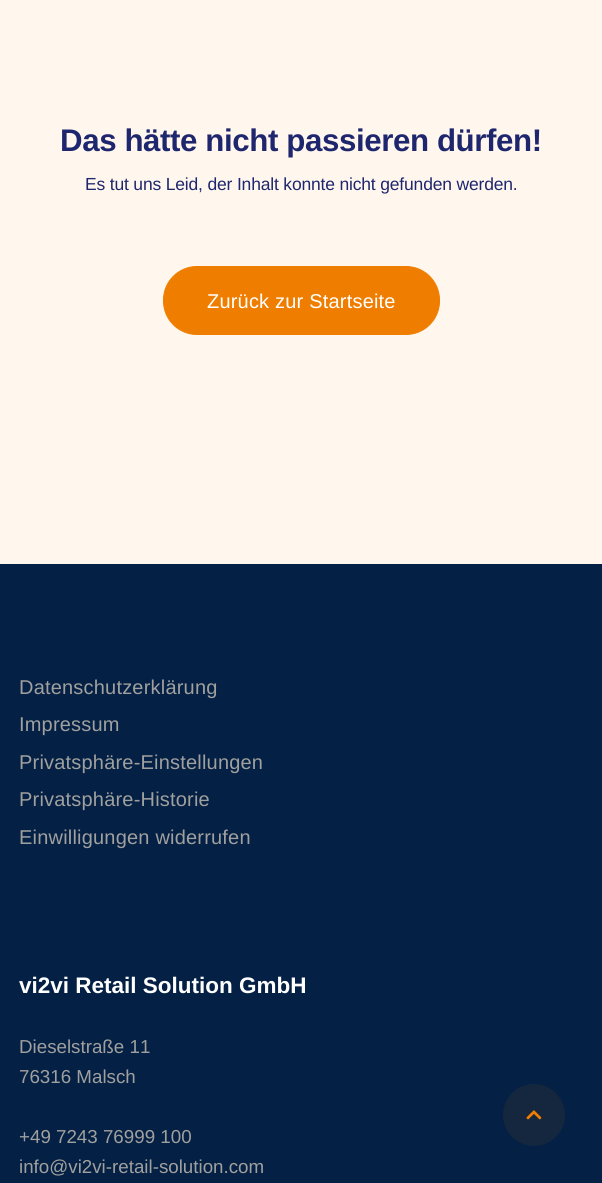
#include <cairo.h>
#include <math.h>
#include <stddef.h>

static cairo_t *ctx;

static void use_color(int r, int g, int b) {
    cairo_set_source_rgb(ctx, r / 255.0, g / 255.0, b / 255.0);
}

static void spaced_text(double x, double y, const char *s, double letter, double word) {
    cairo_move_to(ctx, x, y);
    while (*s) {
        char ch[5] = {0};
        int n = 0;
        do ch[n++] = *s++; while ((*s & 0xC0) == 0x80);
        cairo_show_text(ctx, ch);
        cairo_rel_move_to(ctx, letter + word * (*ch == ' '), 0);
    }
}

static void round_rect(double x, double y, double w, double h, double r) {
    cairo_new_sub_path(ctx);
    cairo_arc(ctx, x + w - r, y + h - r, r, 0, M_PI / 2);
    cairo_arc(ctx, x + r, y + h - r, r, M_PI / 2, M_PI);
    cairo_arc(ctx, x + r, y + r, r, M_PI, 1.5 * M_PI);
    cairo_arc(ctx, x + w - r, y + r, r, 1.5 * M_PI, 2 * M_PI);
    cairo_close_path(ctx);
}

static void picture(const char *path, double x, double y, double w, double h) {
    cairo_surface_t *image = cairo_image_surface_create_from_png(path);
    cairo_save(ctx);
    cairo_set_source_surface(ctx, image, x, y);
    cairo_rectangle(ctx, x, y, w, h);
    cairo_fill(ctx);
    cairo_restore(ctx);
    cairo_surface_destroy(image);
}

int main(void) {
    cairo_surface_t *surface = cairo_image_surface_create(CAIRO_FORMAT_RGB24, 602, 1183);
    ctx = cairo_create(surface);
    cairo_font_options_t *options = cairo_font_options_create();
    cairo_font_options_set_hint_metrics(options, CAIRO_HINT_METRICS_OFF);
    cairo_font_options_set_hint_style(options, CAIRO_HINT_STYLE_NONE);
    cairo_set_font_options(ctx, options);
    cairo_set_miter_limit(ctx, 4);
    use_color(4, 32, 68);
    cairo_paint(ctx);
    use_color(255, 247, 238);
    cairo_rectangle(ctx, 0, 0, 602, 564);
    cairo_fill(ctx);
    cairo_select_font_face(ctx, "Liberation Sans", CAIRO_FONT_SLANT_NORMAL, CAIRO_FONT_WEIGHT_BOLD);
    cairo_set_font_size(ctx, 31.25);
    use_color(30, 38, 109);
    spaced_text(60, 151, "Das hätte nicht passieren dürfen!", -0.4, 0);
    cairo_select_font_face(ctx, "Liberation Sans", CAIRO_FONT_SLANT_NORMAL, CAIRO_FONT_WEIGHT_NORMAL);
    cairo_set_font_size(ctx, 17.5);
    spaced_text(85, 190, "Es tut uns Leid, der Inhalt konnte nicht gefunden werden.", -0.18, 0);
    use_color(239, 125, 0);
    round_rect(163.5, 266.5, 276, 68, 33.5);
    cairo_fill_preserve(ctx);
    cairo_set_line_width(ctx, 1);
    cairo_stroke(ctx);
    cairo_set_font_size(ctx, 20);
    use_color(255, 255, 255);
    spaced_text(207, 308, "Zurück zur Startseite", 0.2, 0);
    use_color(160, 160, 159);
    spaced_text(19, 694, "Datenschutzerklärung", 0.2, 0);
    spaced_text(19, 731, "Impressum", 0.2, 0);
    spaced_text(19, 769, "Privatsphäre-Einstellungen", 0.2, 0);
    spaced_text(19, 806, "Privatsphäre-Historie", 0.2, 0);
    spaced_text(19, 844, "Einwilligungen widerrufen", 0.2, 0);
    cairo_select_font_face(ctx, "Liberation Sans", CAIRO_FONT_SLANT_NORMAL, CAIRO_FONT_WEIGHT_BOLD);
    cairo_set_font_size(ctx, 22.5);
    use_color(255, 255, 255);
    cairo_move_to(ctx, 19, 993);
    cairo_show_text(ctx, "vi2vi Retail Solution GmbH");
    cairo_select_font_face(ctx, "Liberation Sans", CAIRO_FONT_SLANT_NORMAL, CAIRO_FONT_WEIGHT_NORMAL);
    cairo_set_font_size(ctx, 18.75);
    use_color(160, 160, 159);
    cairo_move_to(ctx, 19, 1053);
    cairo_show_text(ctx, "Dieselstraße 11");
    cairo_move_to(ctx, 19, 1083);
    cairo_show_text(ctx, "76316 Malsch");
    cairo_move_to(ctx, 19, 1143);
    cairo_show_text(ctx, "+49 7243 76999 100");
    cairo_move_to(ctx, 19, 1173);
    cairo_show_text(ctx, "info@vi2vi-retail-solution.com");
    use_color(20, 39, 63);
    cairo_new_path(ctx);
    cairo_arc(ctx, 534, 1115, 31, 0, 2 * M_PI);
    cairo_fill(ctx);
    picture("img1.png", 526, 1110, 16, 10);
    cairo_surface_write_to_png(surface, "result.png");
    cairo_font_options_destroy(options);
    cairo_destroy(ctx);
    cairo_surface_destroy(surface);
    return 0;
}
